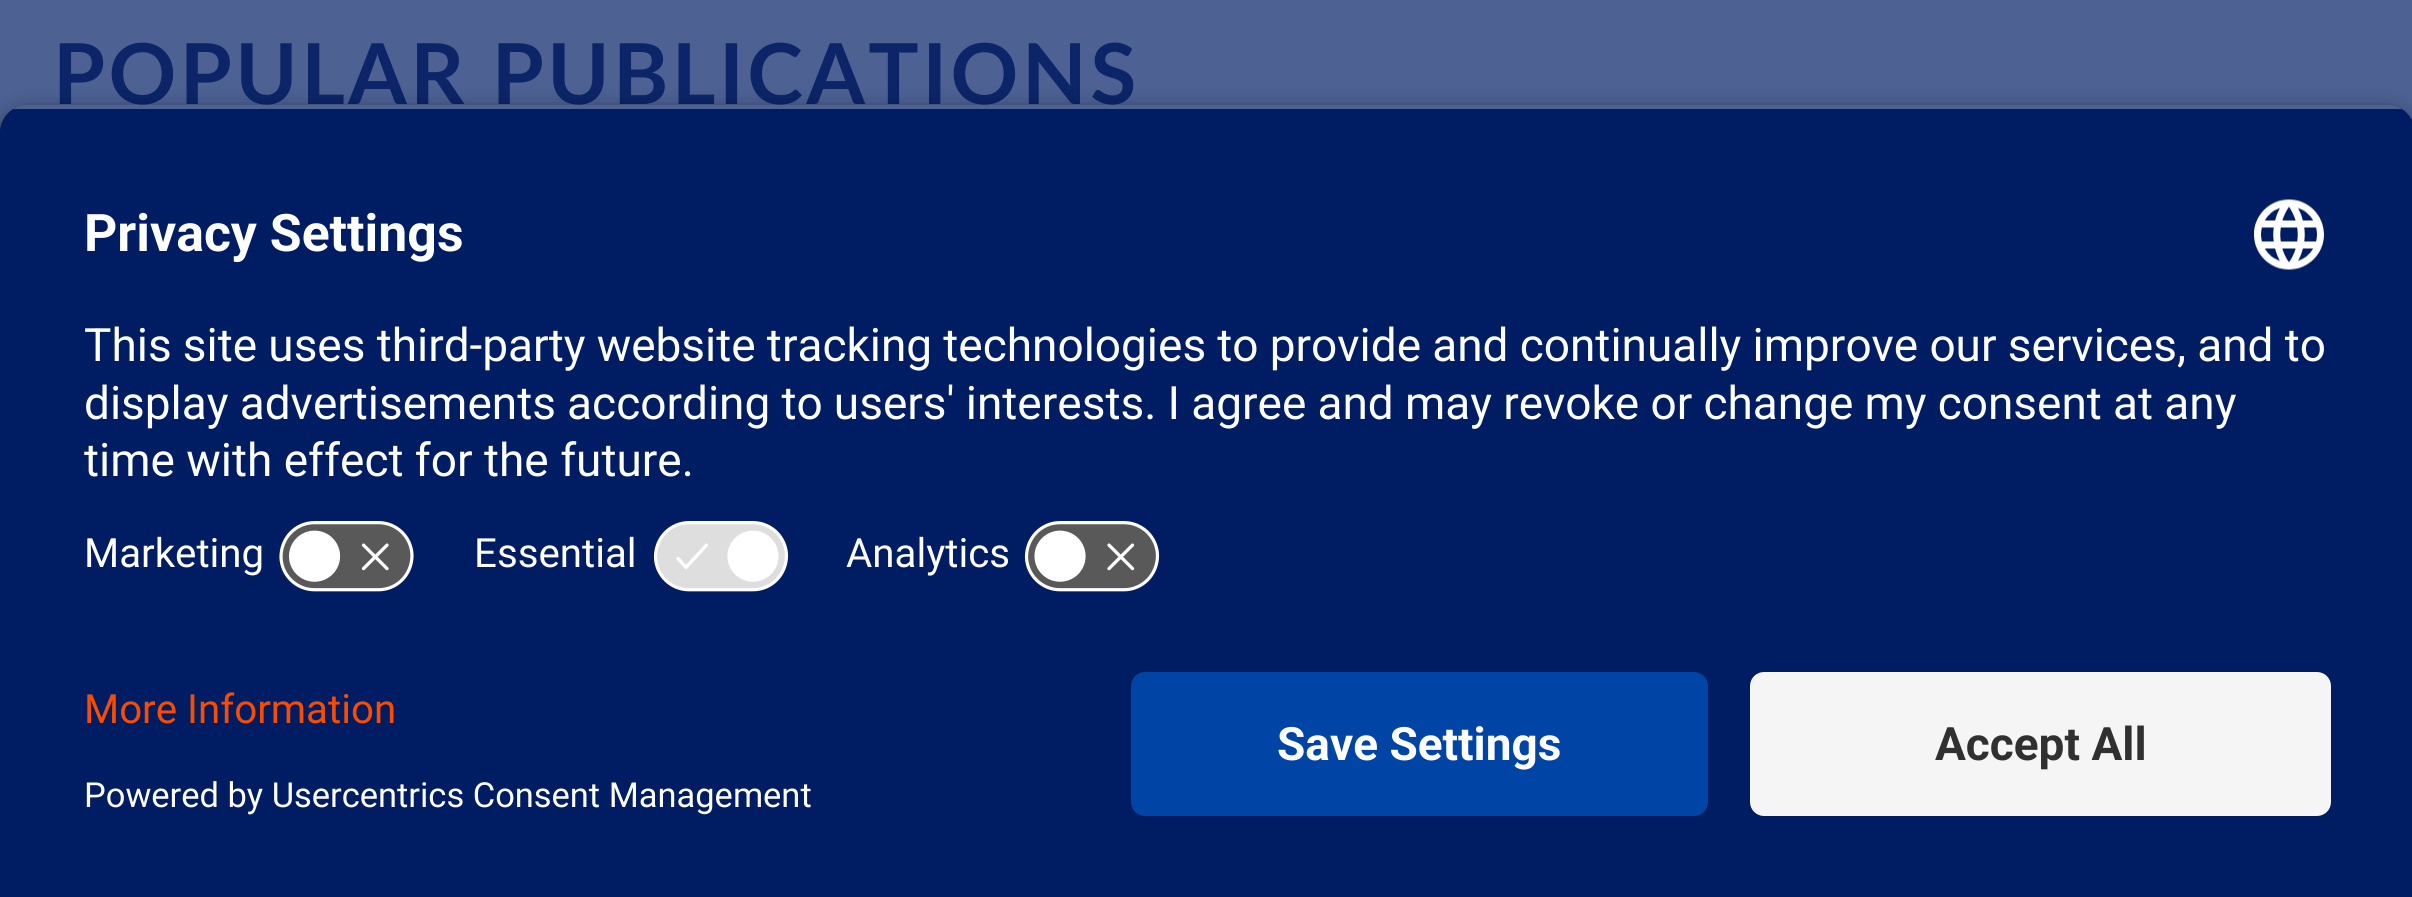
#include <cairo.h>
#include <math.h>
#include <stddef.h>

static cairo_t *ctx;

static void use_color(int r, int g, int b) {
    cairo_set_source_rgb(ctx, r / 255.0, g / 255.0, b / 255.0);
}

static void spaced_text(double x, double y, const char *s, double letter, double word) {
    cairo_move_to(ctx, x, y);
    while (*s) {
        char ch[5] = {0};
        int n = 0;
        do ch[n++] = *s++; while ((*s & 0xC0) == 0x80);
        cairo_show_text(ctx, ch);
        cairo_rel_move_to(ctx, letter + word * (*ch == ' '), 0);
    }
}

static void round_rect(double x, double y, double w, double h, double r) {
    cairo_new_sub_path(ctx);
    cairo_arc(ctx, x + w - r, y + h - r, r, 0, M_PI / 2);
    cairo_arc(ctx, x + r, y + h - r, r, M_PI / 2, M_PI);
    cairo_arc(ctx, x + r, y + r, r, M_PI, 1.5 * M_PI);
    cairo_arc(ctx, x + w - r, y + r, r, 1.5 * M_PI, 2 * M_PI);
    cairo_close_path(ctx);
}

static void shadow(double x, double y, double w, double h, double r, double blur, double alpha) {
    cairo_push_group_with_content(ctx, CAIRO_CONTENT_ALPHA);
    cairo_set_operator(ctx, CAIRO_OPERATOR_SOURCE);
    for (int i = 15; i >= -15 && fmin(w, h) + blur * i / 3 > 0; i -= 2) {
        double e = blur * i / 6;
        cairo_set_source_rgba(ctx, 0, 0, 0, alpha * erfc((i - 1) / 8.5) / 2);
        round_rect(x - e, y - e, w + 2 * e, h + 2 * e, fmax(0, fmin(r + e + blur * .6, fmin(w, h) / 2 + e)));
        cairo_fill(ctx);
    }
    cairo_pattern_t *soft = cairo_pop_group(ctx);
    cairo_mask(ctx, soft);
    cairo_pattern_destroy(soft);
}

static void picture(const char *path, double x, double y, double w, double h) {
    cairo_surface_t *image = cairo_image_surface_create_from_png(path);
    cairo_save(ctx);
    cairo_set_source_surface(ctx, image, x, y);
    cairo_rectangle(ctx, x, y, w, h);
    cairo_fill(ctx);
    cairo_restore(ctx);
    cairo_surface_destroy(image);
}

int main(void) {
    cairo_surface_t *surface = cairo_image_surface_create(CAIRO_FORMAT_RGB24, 2412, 897);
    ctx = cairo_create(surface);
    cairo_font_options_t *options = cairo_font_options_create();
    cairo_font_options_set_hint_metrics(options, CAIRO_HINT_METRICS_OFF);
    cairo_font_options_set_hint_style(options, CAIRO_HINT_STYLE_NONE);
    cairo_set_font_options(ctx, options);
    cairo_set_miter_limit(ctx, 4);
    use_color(77, 97, 147);
    cairo_paint(ctx);
    cairo_select_font_face(ctx, "Lato", CAIRO_FONT_SLANT_NORMAL, CAIRO_FONT_WEIGHT_BOLD);
    cairo_set_font_size(ctx, 84);
    use_color(11, 37, 104);
    spaced_text(53, 104, "POPULAR PUBLICATIONS", 3.5, 0);
    cairo_save(ctx);
    cairo_set_fill_rule(ctx, CAIRO_FILL_RULE_EVEN_ODD);
    cairo_new_path(ctx);
    cairo_move_to(ctx, 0, 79);
    cairo_line_to(ctx, 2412, 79);
    cairo_line_to(ctx, 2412, 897);
    cairo_line_to(ctx, 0, 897);
    cairo_close_path(ctx);
    cairo_move_to(ctx, 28, 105);
    cairo_line_to(ctx, 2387, 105);
    cairo_curve_to(ctx, 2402.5, 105, 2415, 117.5, 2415, 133);
    cairo_line_to(ctx, 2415, 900);
    cairo_line_to(ctx, 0, 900);
    cairo_line_to(ctx, 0, 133);
    cairo_curve_to(ctx, 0, 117.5, 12.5, 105, 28, 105);
    cairo_close_path(ctx);
    cairo_clip(ctx);
    use_color(0, 0, 0);
    shadow(0, 116, 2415, 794, 28, 12, 0.8);
    cairo_restore(ctx);
    cairo_save(ctx);
    cairo_new_path(ctx);
    cairo_move_to(ctx, 28, 105);
    cairo_line_to(ctx, 2387, 105);
    cairo_curve_to(ctx, 2402.5, 105, 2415, 117.5, 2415, 133);
    cairo_line_to(ctx, 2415, 644);
    cairo_line_to(ctx, 0, 644);
    cairo_line_to(ctx, 0, 133);
    cairo_curve_to(ctx, 0, 117.5, 12.5, 105, 28, 105);
    cairo_close_path(ctx);
    cairo_clip(ctx);
    use_color(0, 29, 100);
    cairo_rectangle(ctx, 0, 109, 2412, 535);
    cairo_fill(ctx);
    cairo_rectangle(ctx, 0, 109, 2412, 395);
    cairo_fill(ctx);
    cairo_restore(ctx);
    cairo_select_font_face(ctx, "Roboto", CAIRO_FONT_SLANT_NORMAL, CAIRO_FONT_WEIGHT_BOLD);
    cairo_set_font_size(ctx, 51.75);
    use_color(255, 255, 255);
    cairo_move_to(ctx, 84, 251);
    cairo_show_text(ctx, "Privacy Settings");
    picture("img1.png", 2254, 199, 70, 71);
    cairo_select_font_face(ctx, "Roboto", CAIRO_FONT_SLANT_NORMAL, CAIRO_FONT_WEIGHT_NORMAL);
    cairo_set_font_size(ctx, 45.95);
    spaced_text(84, 361, "This site uses third-party website tracking technologies to provide and continually improve our services, and to", 0, -0.2);
    spaced_text(84, 419, "display advertisements according to users' interests. I agree and may revoke or change my consent at any", 0, -0.2);
    cairo_move_to(ctx, 84, 476);
    cairo_show_text(ctx, "time with effect for the future.");
    cairo_set_font_size(ctx, 40.25);
    cairo_move_to(ctx, 84, 567);
    cairo_show_text(ctx, "Marketing");
    picture("img2.png", 279, 521, 135, 71);
    cairo_move_to(ctx, 474, 567);
    cairo_show_text(ctx, "Essential");
    picture("img3.png", 653, 521, 136, 71);
    cairo_move_to(ctx, 846, 567);
    cairo_show_text(ctx, "Analytics");
    picture("img4.png", 1024, 521, 136, 71);
    use_color(0, 29, 100);
    cairo_rectangle(ctx, 0, 644, 2412, 253);
    cairo_fill(ctx);
    use_color(248, 76, 0);
    cairo_move_to(ctx, 84, 723);
    cairo_show_text(ctx, "More Information");
    cairo_set_font_size(ctx, 34.45);
    use_color(255, 255, 255);
    cairo_move_to(ctx, 84, 807);
    cairo_show_text(ctx, "Powered by Usercentrics Consent Management");
    use_color(0, 69, 165);
    round_rect(1131, 672, 577, 144, 14);
    cairo_fill(ctx);
    cairo_select_font_face(ctx, "Roboto", CAIRO_FONT_SLANT_NORMAL, CAIRO_FONT_WEIGHT_BOLD);
    cairo_set_font_size(ctx, 45.95);
    use_color(255, 255, 255);
    cairo_move_to(ctx, 1277, 760);
    cairo_show_text(ctx, "Save Settings");
    use_color(245, 245, 245);
    round_rect(1750, 672, 581, 144, 14);
    cairo_fill(ctx);
    use_color(48, 48, 48);
    cairo_move_to(ctx, 1935, 760);
    cairo_show_text(ctx, "Accept All");
    cairo_surface_write_to_png(surface, "result.png");
    cairo_font_options_destroy(options);
    cairo_destroy(ctx);
    cairo_surface_destroy(surface);
    return 0;
}
